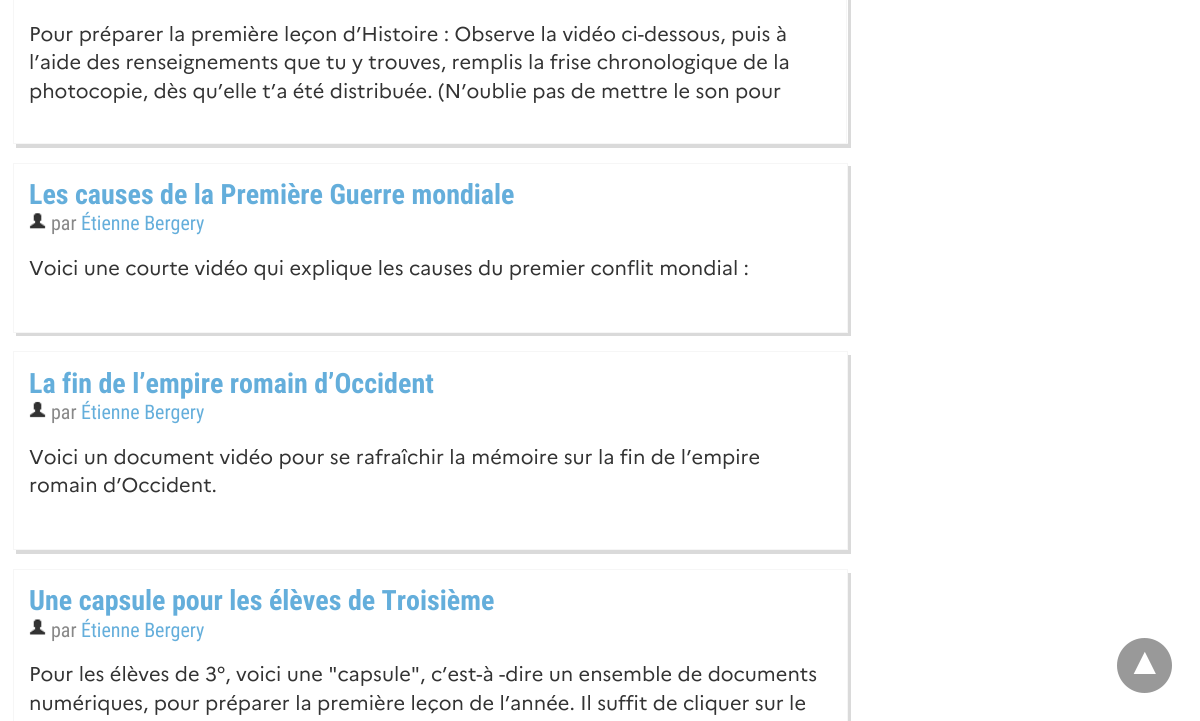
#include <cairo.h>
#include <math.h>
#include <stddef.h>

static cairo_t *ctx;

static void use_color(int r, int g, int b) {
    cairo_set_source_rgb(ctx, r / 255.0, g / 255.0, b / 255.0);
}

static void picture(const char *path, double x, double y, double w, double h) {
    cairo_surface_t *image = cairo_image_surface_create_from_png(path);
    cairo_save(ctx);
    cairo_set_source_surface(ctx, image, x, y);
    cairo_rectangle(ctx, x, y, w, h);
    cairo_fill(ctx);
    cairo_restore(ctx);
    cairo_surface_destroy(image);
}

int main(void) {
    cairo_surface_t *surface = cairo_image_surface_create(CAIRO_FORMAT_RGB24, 1200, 721);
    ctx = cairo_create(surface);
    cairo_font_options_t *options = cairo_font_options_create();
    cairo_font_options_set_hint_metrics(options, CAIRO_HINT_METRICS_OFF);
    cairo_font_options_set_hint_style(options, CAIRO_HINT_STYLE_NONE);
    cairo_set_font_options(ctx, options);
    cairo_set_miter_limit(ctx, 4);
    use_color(255, 255, 255);
    cairo_paint(ctx);
    use_color(218, 218, 218);
    cairo_new_path(ctx);
    cairo_move_to(ctx, 16, 144);
    cairo_line_to(ctx, 16, 148);
    cairo_line_to(ctx, 851, 148);
    cairo_line_to(ctx, 851, -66);
    cairo_line_to(ctx, 848, -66);
    cairo_line_to(ctx, 848, 144);
    cairo_close_path(ctx);
    cairo_fill(ctx);
    use_color(246, 246, 246);
    cairo_rectangle(ctx, 846, 0, 1, 144);
    cairo_fill(ctx);
    cairo_rectangle(ctx, 13, 143, 835, 1);
    cairo_fill(ctx);
    cairo_rectangle(ctx, 13, 0, 1, 144);
    cairo_fill(ctx);
    cairo_select_font_face(ctx, "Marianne", CAIRO_FONT_SLANT_NORMAL, CAIRO_FONT_WEIGHT_NORMAL);
    cairo_set_font_size(ctx, 20);
    use_color(51, 51, 51);
    cairo_move_to(ctx, 29, 41);
    cairo_show_text(ctx, "Pour préparer la première leçon d’Histoire : Observe la vidéo ci-dessous, puis à");
    cairo_move_to(ctx, 29, 69);
    cairo_show_text(ctx, "l’aide des renseignements que tu y trouves, remplis la frise chronologique de la");
    cairo_move_to(ctx, 29, 98);
    cairo_show_text(ctx, "photocopie, dès qu’elle t’a été distribuée. (N’oublie pas de mettre le son pour");
    use_color(218, 218, 218);
    cairo_new_path(ctx);
    cairo_move_to(ctx, 16, 332);
    cairo_line_to(ctx, 16, 336);
    cairo_line_to(ctx, 851, 336);
    cairo_line_to(ctx, 851, 166);
    cairo_line_to(ctx, 848, 166);
    cairo_line_to(ctx, 848, 332);
    cairo_close_path(ctx);
    cairo_fill(ctx);
    cairo_rectangle(ctx, 13.5, 163.5, 834, 169);
    use_color(246, 246, 246);
    cairo_set_line_width(ctx, 1);
    cairo_stroke(ctx);
    cairo_select_font_face(ctx, "Roboto Condensed", CAIRO_FONT_SLANT_NORMAL, CAIRO_FONT_WEIGHT_BOLD);
    cairo_set_font_size(ctx, 28);
    use_color(100, 174, 219);
    cairo_move_to(ctx, 29, 204);
    cairo_show_text(ctx, "Les causes de la Première Guerre mondiale");
    picture("img1.png", 29, 213, 17, 16);
    cairo_select_font_face(ctx, "Roboto Condensed", CAIRO_FONT_SLANT_NORMAL, CAIRO_FONT_WEIGHT_NORMAL);
    cairo_set_font_size(ctx, 20);
    use_color(136, 136, 136);
    cairo_move_to(ctx, 51, 230);
    cairo_show_text(ctx, "par");
    use_color(100, 174, 219);
    cairo_move_to(ctx, 81, 230);
    cairo_show_text(ctx, "Étienne Bergery");
    cairo_select_font_face(ctx, "Marianne", CAIRO_FONT_SLANT_NORMAL, CAIRO_FONT_WEIGHT_NORMAL);
    use_color(51, 51, 51);
    cairo_move_to(ctx, 29, 275);
    cairo_show_text(ctx, "Voici une courte vidéo qui explique les causes du premier conflit mondial :");
    use_color(218, 218, 218);
    cairo_new_path(ctx);
    cairo_move_to(ctx, 16, 550);
    cairo_line_to(ctx, 16, 554);
    cairo_line_to(ctx, 851, 554);
    cairo_line_to(ctx, 851, 355);
    cairo_line_to(ctx, 848, 355);
    cairo_line_to(ctx, 848, 550);
    cairo_close_path(ctx);
    cairo_fill(ctx);
    cairo_rectangle(ctx, 13.5, 351.5, 834, 198);
    use_color(246, 246, 246);
    cairo_stroke(ctx);
    cairo_select_font_face(ctx, "Roboto Condensed", CAIRO_FONT_SLANT_NORMAL, CAIRO_FONT_WEIGHT_BOLD);
    cairo_set_font_size(ctx, 28);
    use_color(100, 174, 219);
    cairo_move_to(ctx, 29, 393);
    cairo_show_text(ctx, "La fin de l’empire romain d’Occident");
    picture("img2.png", 29, 401, 17, 17);
    cairo_select_font_face(ctx, "Roboto Condensed", CAIRO_FONT_SLANT_NORMAL, CAIRO_FONT_WEIGHT_NORMAL);
    cairo_set_font_size(ctx, 20);
    use_color(136, 136, 136);
    cairo_move_to(ctx, 51, 419);
    cairo_show_text(ctx, "par");
    use_color(100, 174, 219);
    cairo_move_to(ctx, 81, 419);
    cairo_show_text(ctx, "Étienne Bergery");
    cairo_select_font_face(ctx, "Marianne", CAIRO_FONT_SLANT_NORMAL, CAIRO_FONT_WEIGHT_NORMAL);
    use_color(51, 51, 51);
    cairo_move_to(ctx, 29, 464);
    cairo_show_text(ctx, "Voici un document vidéo pour se rafraîchir la mémoire sur la fin de l’empire");
    cairo_move_to(ctx, 29, 492);
    cairo_show_text(ctx, "romain d’Occident.");
    use_color(218, 218, 218);
    cairo_new_path(ctx);
    cairo_move_to(ctx, 16, 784);
    cairo_line_to(ctx, 16, 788);
    cairo_line_to(ctx, 851, 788);
    cairo_line_to(ctx, 851, 573);
    cairo_line_to(ctx, 848, 573);
    cairo_line_to(ctx, 848, 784);
    cairo_close_path(ctx);
    cairo_fill(ctx);
    cairo_rectangle(ctx, 13.5, 569.5, 834, 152);
    use_color(246, 246, 246);
    cairo_stroke(ctx);
    cairo_select_font_face(ctx, "Roboto Condensed", CAIRO_FONT_SLANT_NORMAL, CAIRO_FONT_WEIGHT_BOLD);
    cairo_set_font_size(ctx, 28);
    use_color(100, 174, 219);
    cairo_move_to(ctx, 29, 610);
    cairo_show_text(ctx, "Une capsule pour les élèves de Troisième");
    picture("img3.png", 29, 619, 17, 16);
    cairo_select_font_face(ctx, "Roboto Condensed", CAIRO_FONT_SLANT_NORMAL, CAIRO_FONT_WEIGHT_NORMAL);
    cairo_set_font_size(ctx, 20);
    use_color(136, 136, 136);
    cairo_move_to(ctx, 51, 637);
    cairo_show_text(ctx, "par");
    use_color(100, 174, 219);
    cairo_move_to(ctx, 81, 637);
    cairo_show_text(ctx, "Étienne Bergery");
    cairo_select_font_face(ctx, "Marianne", CAIRO_FONT_SLANT_NORMAL, CAIRO_FONT_WEIGHT_NORMAL);
    use_color(51, 51, 51);
    cairo_move_to(ctx, 29, 681);
    cairo_show_text(ctx, "Pour les élèves de 3°, voici une \"capsule\", c’est-à -dire un ensemble de documents");
    cairo_move_to(ctx, 29, 710);
    cairo_show_text(ctx, "numériques, pour préparer la première leçon de l’année. Il suffit de cliquer sur le");
    use_color(153, 153, 153);
    cairo_new_path(ctx);
    cairo_arc(ctx, 1144.5, 665.5, 29, 0, 2 * M_PI);
    cairo_fill_preserve(ctx);
    use_color(255, 255, 255);
    cairo_set_line_width(ctx, 3);
    cairo_stroke(ctx);
    cairo_select_font_face(ctx, "Liberation Sans", CAIRO_FONT_SLANT_NORMAL, CAIRO_FONT_WEIGHT_NORMAL);
    cairo_set_font_size(ctx, 38);
    cairo_move_to(ctx, 1126, 674);
    cairo_show_text(ctx, "▲");
    cairo_surface_write_to_png(surface, "result.png");
    cairo_font_options_destroy(options);
    cairo_destroy(ctx);
    cairo_surface_destroy(surface);
    return 0;
}
